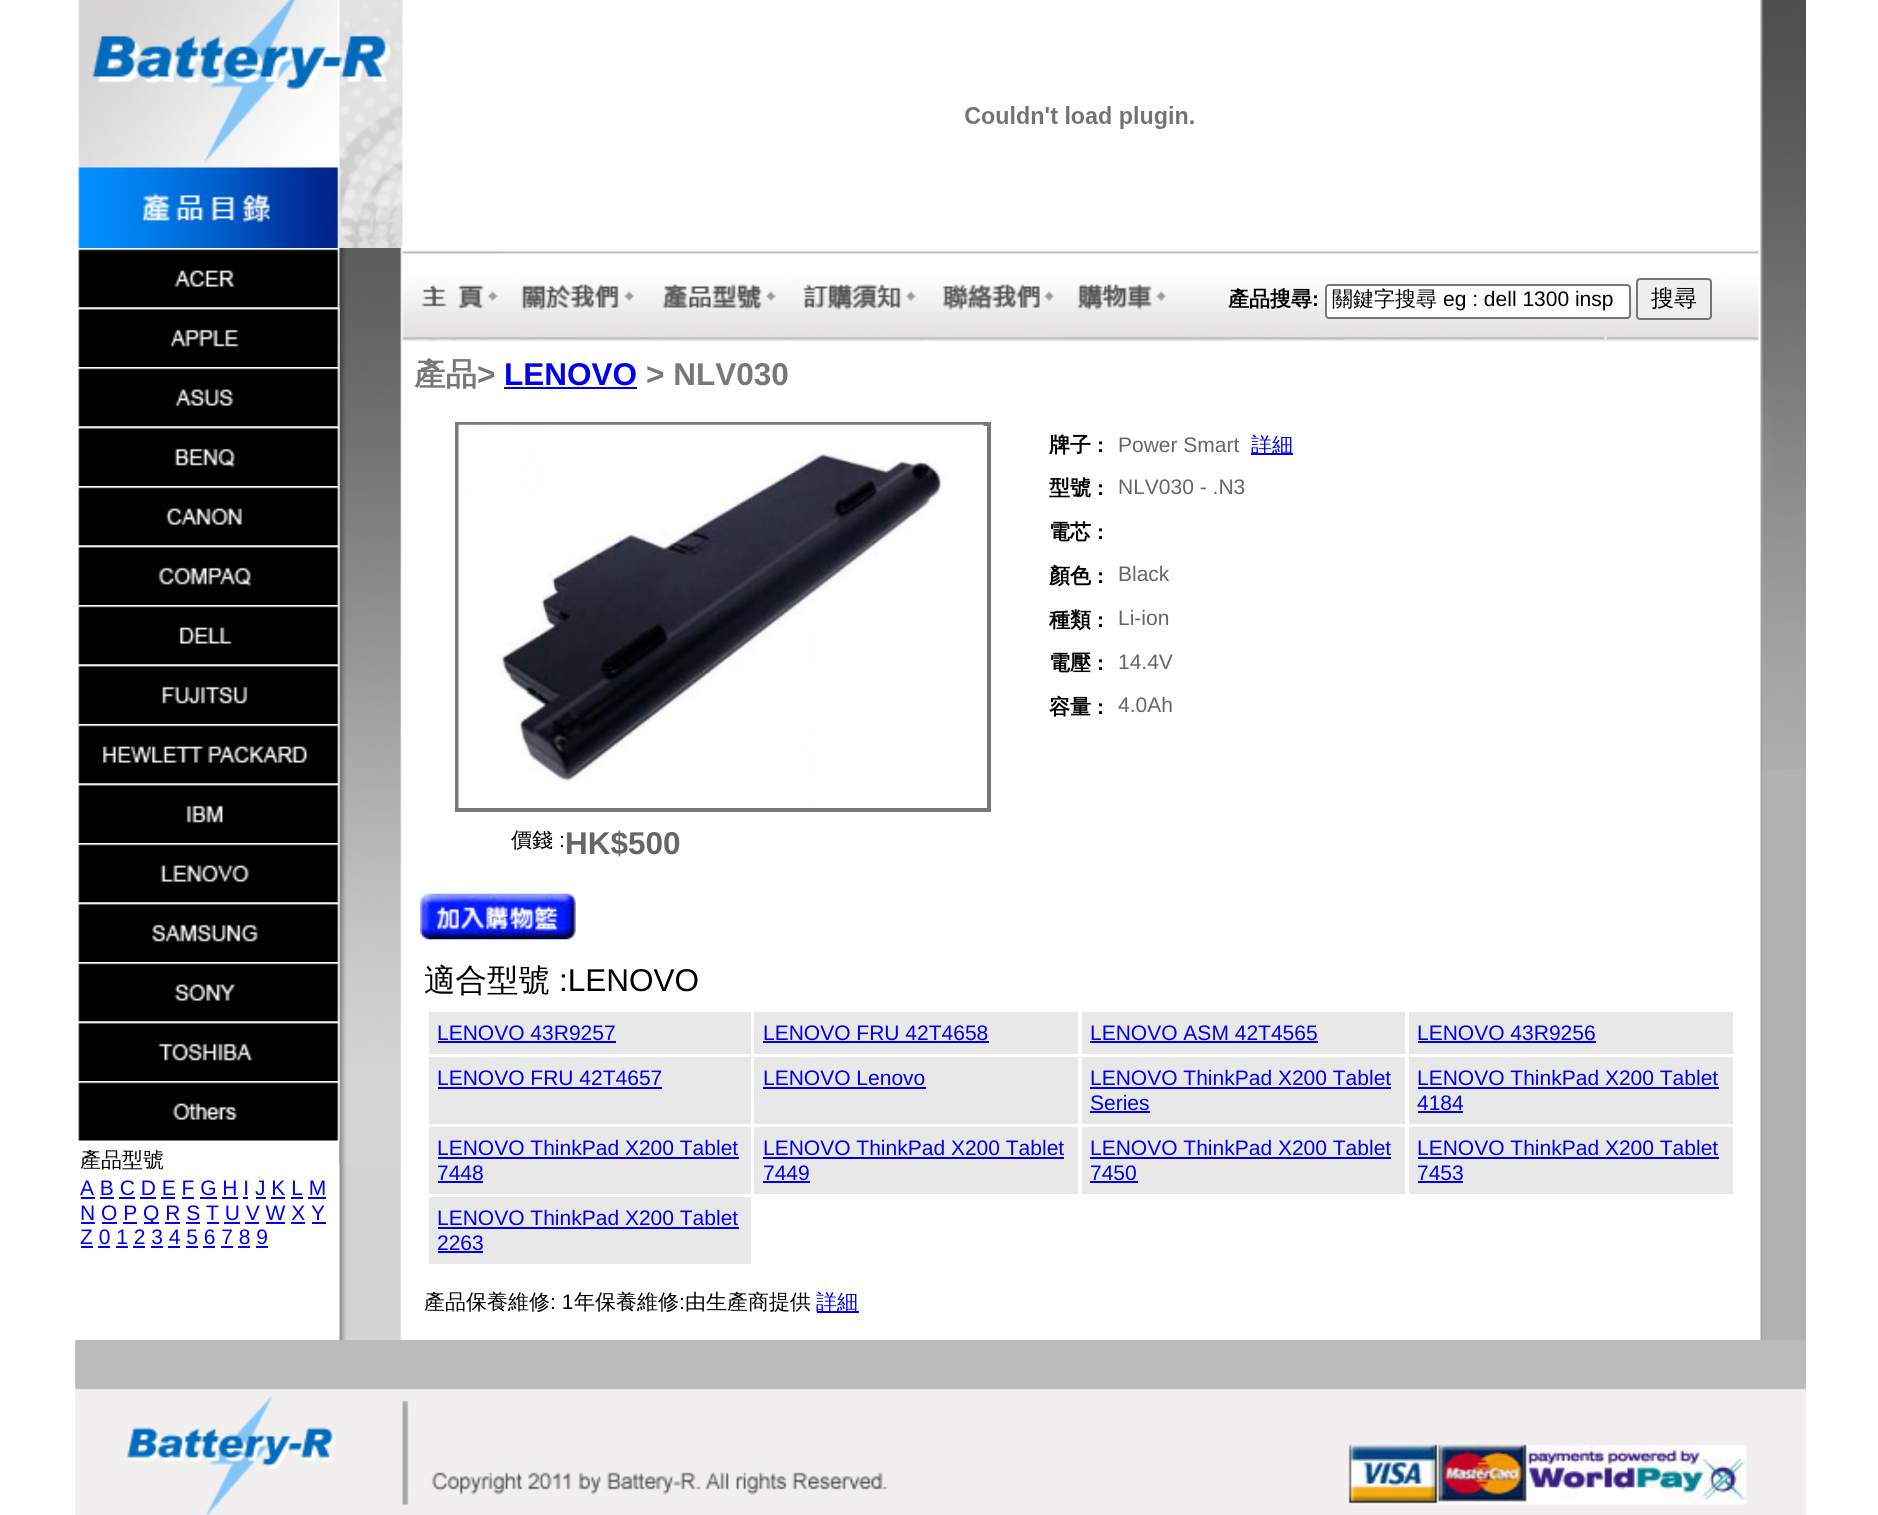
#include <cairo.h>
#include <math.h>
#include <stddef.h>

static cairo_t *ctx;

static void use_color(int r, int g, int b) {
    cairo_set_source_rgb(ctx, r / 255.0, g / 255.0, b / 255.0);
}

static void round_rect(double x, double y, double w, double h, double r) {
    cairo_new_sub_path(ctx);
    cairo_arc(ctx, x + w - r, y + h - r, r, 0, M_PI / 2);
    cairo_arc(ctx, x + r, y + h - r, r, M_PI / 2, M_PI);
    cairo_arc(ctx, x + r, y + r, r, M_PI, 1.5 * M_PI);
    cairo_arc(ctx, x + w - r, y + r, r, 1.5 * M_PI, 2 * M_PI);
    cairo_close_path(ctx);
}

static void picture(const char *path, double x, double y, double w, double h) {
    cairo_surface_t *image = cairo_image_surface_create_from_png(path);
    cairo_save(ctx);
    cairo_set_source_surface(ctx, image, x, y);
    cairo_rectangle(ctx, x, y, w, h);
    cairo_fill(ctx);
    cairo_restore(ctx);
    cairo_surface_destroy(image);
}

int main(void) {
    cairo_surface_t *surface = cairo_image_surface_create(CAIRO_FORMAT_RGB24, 1878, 1515);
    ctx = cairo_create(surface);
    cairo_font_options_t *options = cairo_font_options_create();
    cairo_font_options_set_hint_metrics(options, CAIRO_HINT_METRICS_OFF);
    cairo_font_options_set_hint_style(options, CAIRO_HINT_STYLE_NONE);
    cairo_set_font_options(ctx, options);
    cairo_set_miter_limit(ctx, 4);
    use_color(255, 255, 255);
    cairo_paint(ctx);
    picture("img1.png", 339, 248, 62, 1092);
    picture("img2.png", 78, 0, 325, 248);
    picture("img3.png", 78, 248, 262, 60);
    picture("img20.png", 402, 251, 1357, 90);
    picture("img21.png", 402, 251, 96, 90);
    picture("img4.png", 339, 248, 64, 916);
    picture("img5.png", 78, 307, 262, 60);
    picture("img6.png", 78, 367, 262, 60);
    picture("img7.png", 78, 426, 262, 60);
    picture("img8.png", 78, 486, 262, 60);
    picture("img9.png", 78, 545, 262, 60);
    picture("img10.png", 78, 605, 262, 60);
    picture("img11.png", 78, 664, 262, 60);
    picture("img12.png", 78, 724, 262, 60);
    picture("img13.png", 78, 783, 262, 60);
    picture("img14.png", 78, 843, 262, 60);
    picture("img15.png", 78, 902, 262, 60);
    picture("img16.png", 78, 962, 262, 60);
    picture("img17.png", 78, 1021, 262, 60);
    picture("img18.png", 78, 1081, 262, 60);
    cairo_select_font_face(ctx, "WenQuanYi Zen Hei Medium", CAIRO_FONT_SLANT_NORMAL, CAIRO_FONT_WEIGHT_NORMAL);
    cairo_set_font_size(ctx, 21);
    use_color(0, 0, 0);
    cairo_move_to(ctx, 80, 1167);
    cairo_show_text(ctx, "產品型號");
    cairo_select_font_face(ctx, "Liberation Sans", CAIRO_FONT_SLANT_NORMAL, CAIRO_FONT_WEIGHT_NORMAL);
    use_color(0, 0, 238);
    cairo_move_to(ctx, 80, 1195);
    cairo_show_text(ctx, "A B C D E F G H I J K L M");
    cairo_rectangle(ctx, 81, 1197, 14, 2);
    cairo_fill(ctx);
    cairo_rectangle(ctx, 100, 1197, 14, 2);
    cairo_fill(ctx);
    cairo_rectangle(ctx, 119, 1197, 16, 2);
    cairo_fill(ctx);
    cairo_rectangle(ctx, 140, 1197, 16, 2);
    cairo_fill(ctx);
    cairo_rectangle(ctx, 161, 1197, 14, 2);
    cairo_fill(ctx);
    cairo_rectangle(ctx, 182, 1197, 12, 2);
    cairo_fill(ctx);
    cairo_rectangle(ctx, 200, 1197, 17, 2);
    cairo_fill(ctx);
    cairo_rectangle(ctx, 222, 1197, 16, 2);
    cairo_fill(ctx);
    cairo_rectangle(ctx, 243, 1197, 5, 2);
    cairo_fill(ctx);
    cairo_rectangle(ctx, 256, 1197, 10, 2);
    cairo_fill(ctx);
    cairo_rectangle(ctx, 271, 1197, 14, 2);
    cairo_fill(ctx);
    cairo_rectangle(ctx, 291, 1197, 12, 2);
    cairo_fill(ctx);
    cairo_rectangle(ctx, 308, 1197, 18, 2);
    cairo_fill(ctx);
    cairo_move_to(ctx, 80, 1220);
    cairo_show_text(ctx, "N O P");
    cairo_rectangle(ctx, 81, 1222, 14, 2);
    cairo_fill(ctx);
    cairo_rectangle(ctx, 144, 1222, 15, 2);
    cairo_fill(ctx);
    cairo_move_to(ctx, 143, 1220);
    cairo_show_text(ctx, "Q R S T U V W X Y");
    cairo_rectangle(ctx, 102, 1222, 15, 2);
    cairo_fill(ctx);
    cairo_rectangle(ctx, 123, 1222, 14, 2);
    cairo_fill(ctx);
    cairo_rectangle(ctx, 165, 1222, 15, 2);
    cairo_fill(ctx);
    cairo_rectangle(ctx, 186, 1222, 14, 2);
    cairo_fill(ctx);
    cairo_rectangle(ctx, 207, 1222, 12, 2);
    cairo_fill(ctx);
    cairo_rectangle(ctx, 224, 1222, 16, 2);
    cairo_fill(ctx);
    cairo_rectangle(ctx, 245, 1222, 14, 2);
    cairo_fill(ctx);
    cairo_rectangle(ctx, 266, 1222, 19, 2);
    cairo_fill(ctx);
    cairo_rectangle(ctx, 291, 1222, 14, 2);
    cairo_fill(ctx);
    cairo_rectangle(ctx, 312, 1222, 14, 2);
    cairo_fill(ctx);
    cairo_move_to(ctx, 80, 1244);
    cairo_show_text(ctx, "Z 0 1 2 3 4 5 6 7 8 9");
    cairo_rectangle(ctx, 81, 1246, 12, 2);
    cairo_fill(ctx);
    cairo_rectangle(ctx, 98, 1246, 12, 2);
    cairo_fill(ctx);
    cairo_rectangle(ctx, 116, 1246, 12, 2);
    cairo_fill(ctx);
    cairo_rectangle(ctx, 133, 1246, 12, 2);
    cairo_fill(ctx);
    cairo_rectangle(ctx, 151, 1246, 12, 2);
    cairo_fill(ctx);
    cairo_rectangle(ctx, 168, 1246, 12, 2);
    cairo_fill(ctx);
    cairo_rectangle(ctx, 186, 1246, 12, 2);
    cairo_fill(ctx);
    cairo_rectangle(ctx, 203, 1246, 12, 2);
    cairo_fill(ctx);
    cairo_rectangle(ctx, 221, 1246, 12, 2);
    cairo_fill(ctx);
    cairo_rectangle(ctx, 238, 1246, 12, 2);
    cairo_fill(ctx);
    cairo_rectangle(ctx, 256, 1246, 12, 2);
    cairo_fill(ctx);
    picture("img19.png", 965, 106, 229, 23);
    picture("img22.png", 520, 284, 122, 57);
    picture("img23.png", 650, 284, 134, 57);
    picture("img24.png", 792, 284, 132, 57);
    picture("img25.png", 930, 284, 134, 57);
    use_color(228, 228, 228);
    cairo_rectangle(ctx, 1064, 340, 164, 1);
    cairo_fill(ctx);
    picture("img26.png", 1077, 284, 89, 26);
    cairo_select_font_face(ctx, "WenQuanYi Zen Hei", CAIRO_FONT_SLANT_NORMAL, CAIRO_FONT_WEIGHT_BOLD);
    use_color(0, 0, 0);
    cairo_move_to(ctx, 1228, 306);
    cairo_show_text(ctx, "產品搜尋");
    cairo_select_font_face(ctx, "Liberation Sans", CAIRO_FONT_SLANT_NORMAL, CAIRO_FONT_WEIGHT_BOLD);
    cairo_move_to(ctx, 1312, 306);
    cairo_show_text(ctx, ":");
    use_color(255, 255, 255);
    round_rect(1326, 285, 304, 33, 3);
    cairo_fill_preserve(ctx);
    use_color(118, 118, 118);
    cairo_stroke(ctx);
    cairo_select_font_face(ctx, "WenQuanYi Zen Hei Medium", CAIRO_FONT_SLANT_NORMAL, CAIRO_FONT_WEIGHT_NORMAL);
    use_color(0, 0, 0);
    cairo_move_to(ctx, 1332, 306);
    cairo_show_text(ctx, "關鍵字搜尋");
    cairo_select_font_face(ctx, "Liberation Sans", CAIRO_FONT_SLANT_NORMAL, CAIRO_FONT_WEIGHT_NORMAL);
    cairo_move_to(ctx, 1443, 306);
    cairo_show_text(ctx, "eg : dell 1300 insp");
    use_color(239, 239, 239);
    round_rect(1637, 279, 74, 40, 3);
    cairo_fill_preserve(ctx);
    use_color(118, 118, 118);
    cairo_stroke(ctx);
    cairo_select_font_face(ctx, "WenQuanYi Zen Hei Medium", CAIRO_FONT_SLANT_NORMAL, CAIRO_FONT_WEIGHT_NORMAL);
    cairo_set_font_size(ctx, 23);
    use_color(0, 0, 0);
    cairo_move_to(ctx, 1651, 306);
    cairo_show_text(ctx, "搜尋");
    cairo_select_font_face(ctx, "WenQuanYi Zen Hei", CAIRO_FONT_SLANT_NORMAL, CAIRO_FONT_WEIGHT_BOLD);
    cairo_set_font_size(ctx, 31.5);
    use_color(120, 120, 120);
    cairo_move_to(ctx, 414, 385);
    cairo_show_text(ctx, "產品");
    cairo_select_font_face(ctx, "Liberation Sans", CAIRO_FONT_SLANT_NORMAL, CAIRO_FONT_WEIGHT_BOLD);
    cairo_move_to(ctx, 477, 385);
    cairo_show_text(ctx, ">");
    use_color(0, 0, 238);
    cairo_move_to(ctx, 504, 385);
    cairo_show_text(ctx, "LENOVO");
    cairo_rectangle(ctx, 504, 387, 133, 2);
    cairo_fill(ctx);
    use_color(120, 120, 120);
    cairo_move_to(ctx, 646, 385);
    cairo_show_text(ctx, "> NLV030");
    cairo_rectangle(ctx, 456, 423, 534, 388);
    cairo_stroke(ctx);
    cairo_rectangle(ctx, 458, 425, 530, 384);
    cairo_stroke(ctx);
    picture("img27.png", 458, 424, 526, 384);
    cairo_select_font_face(ctx, "WenQuanYi Zen Hei", CAIRO_FONT_SLANT_NORMAL, CAIRO_FONT_WEIGHT_BOLD);
    cairo_set_font_size(ctx, 21);
    use_color(0, 0, 0);
    cairo_move_to(ctx, 1049, 452);
    cairo_show_text(ctx, "牌子");
    cairo_select_font_face(ctx, "Liberation Sans", CAIRO_FONT_SLANT_NORMAL, CAIRO_FONT_WEIGHT_BOLD);
    cairo_move_to(ctx, 1097, 452);
    cairo_show_text(ctx, ":");
    cairo_select_font_face(ctx, "Liberation Sans", CAIRO_FONT_SLANT_NORMAL, CAIRO_FONT_WEIGHT_NORMAL);
    use_color(102, 102, 102);
    cairo_move_to(ctx, 1118, 452);
    cairo_show_text(ctx, "Power Smart");
    use_color(0, 0, 238);
    cairo_rectangle(ctx, 1251, 453, 42, 2);
    cairo_fill(ctx);
    cairo_select_font_face(ctx, "WenQuanYi Zen Hei Medium", CAIRO_FONT_SLANT_NORMAL, CAIRO_FONT_WEIGHT_NORMAL);
    cairo_move_to(ctx, 1251, 452);
    cairo_show_text(ctx, "詳細");
    cairo_select_font_face(ctx, "WenQuanYi Zen Hei", CAIRO_FONT_SLANT_NORMAL, CAIRO_FONT_WEIGHT_BOLD);
    use_color(0, 0, 0);
    cairo_move_to(ctx, 1049, 495);
    cairo_show_text(ctx, "型號");
    cairo_select_font_face(ctx, "Liberation Sans", CAIRO_FONT_SLANT_NORMAL, CAIRO_FONT_WEIGHT_BOLD);
    cairo_move_to(ctx, 1097, 495);
    cairo_show_text(ctx, ":");
    cairo_select_font_face(ctx, "Liberation Sans", CAIRO_FONT_SLANT_NORMAL, CAIRO_FONT_WEIGHT_NORMAL);
    use_color(102, 102, 102);
    cairo_move_to(ctx, 1118, 494);
    cairo_show_text(ctx, "NLV030 - .N3");
    cairo_select_font_face(ctx, "WenQuanYi Zen Hei", CAIRO_FONT_SLANT_NORMAL, CAIRO_FONT_WEIGHT_BOLD);
    use_color(0, 0, 0);
    cairo_move_to(ctx, 1049, 539);
    cairo_show_text(ctx, "電芯");
    cairo_select_font_face(ctx, "Liberation Sans", CAIRO_FONT_SLANT_NORMAL, CAIRO_FONT_WEIGHT_BOLD);
    cairo_move_to(ctx, 1097, 539);
    cairo_show_text(ctx, ":");
    cairo_select_font_face(ctx, "WenQuanYi Zen Hei", CAIRO_FONT_SLANT_NORMAL, CAIRO_FONT_WEIGHT_BOLD);
    cairo_move_to(ctx, 1049, 583);
    cairo_show_text(ctx, "顏色");
    cairo_select_font_face(ctx, "Liberation Sans", CAIRO_FONT_SLANT_NORMAL, CAIRO_FONT_WEIGHT_BOLD);
    cairo_move_to(ctx, 1097, 583);
    cairo_show_text(ctx, ":");
    cairo_select_font_face(ctx, "Liberation Sans", CAIRO_FONT_SLANT_NORMAL, CAIRO_FONT_WEIGHT_NORMAL);
    use_color(102, 102, 102);
    cairo_move_to(ctx, 1118, 581);
    cairo_show_text(ctx, "Black");
    cairo_select_font_face(ctx, "WenQuanYi Zen Hei", CAIRO_FONT_SLANT_NORMAL, CAIRO_FONT_WEIGHT_BOLD);
    use_color(0, 0, 0);
    cairo_move_to(ctx, 1049, 627);
    cairo_show_text(ctx, "種類");
    cairo_select_font_face(ctx, "Liberation Sans", CAIRO_FONT_SLANT_NORMAL, CAIRO_FONT_WEIGHT_BOLD);
    cairo_move_to(ctx, 1097, 627);
    cairo_show_text(ctx, ":");
    cairo_select_font_face(ctx, "Liberation Sans", CAIRO_FONT_SLANT_NORMAL, CAIRO_FONT_WEIGHT_NORMAL);
    use_color(102, 102, 102);
    cairo_move_to(ctx, 1118, 625);
    cairo_show_text(ctx, "Li-ion");
    cairo_select_font_face(ctx, "WenQuanYi Zen Hei", CAIRO_FONT_SLANT_NORMAL, CAIRO_FONT_WEIGHT_BOLD);
    use_color(0, 0, 0);
    cairo_move_to(ctx, 1049, 670);
    cairo_show_text(ctx, "電壓");
    cairo_select_font_face(ctx, "Liberation Sans", CAIRO_FONT_SLANT_NORMAL, CAIRO_FONT_WEIGHT_BOLD);
    cairo_move_to(ctx, 1097, 670);
    cairo_show_text(ctx, ":");
    cairo_select_font_face(ctx, "Liberation Sans", CAIRO_FONT_SLANT_NORMAL, CAIRO_FONT_WEIGHT_NORMAL);
    use_color(102, 102, 102);
    cairo_move_to(ctx, 1118, 669);
    cairo_show_text(ctx, "14.4V");
    cairo_select_font_face(ctx, "WenQuanYi Zen Hei", CAIRO_FONT_SLANT_NORMAL, CAIRO_FONT_WEIGHT_BOLD);
    use_color(0, 0, 0);
    cairo_move_to(ctx, 1049, 714);
    cairo_show_text(ctx, "容量");
    cairo_select_font_face(ctx, "Liberation Sans", CAIRO_FONT_SLANT_NORMAL, CAIRO_FONT_WEIGHT_BOLD);
    cairo_move_to(ctx, 1097, 714);
    cairo_show_text(ctx, ":");
    cairo_select_font_face(ctx, "Liberation Sans", CAIRO_FONT_SLANT_NORMAL, CAIRO_FONT_WEIGHT_NORMAL);
    use_color(102, 102, 102);
    cairo_move_to(ctx, 1118, 712);
    cairo_show_text(ctx, "4.0Ah");
    cairo_select_font_face(ctx, "WenQuanYi Zen Hei Medium", CAIRO_FONT_SLANT_NORMAL, CAIRO_FONT_WEIGHT_NORMAL);
    use_color(0, 0, 0);
    cairo_move_to(ctx, 511, 847);
    cairo_show_text(ctx, "價錢");
    cairo_select_font_face(ctx, "Liberation Sans", CAIRO_FONT_SLANT_NORMAL, CAIRO_FONT_WEIGHT_NORMAL);
    cairo_move_to(ctx, 559, 847);
    cairo_show_text(ctx, ":");
    cairo_select_font_face(ctx, "Liberation Sans", CAIRO_FONT_SLANT_NORMAL, CAIRO_FONT_WEIGHT_BOLD);
    cairo_set_font_size(ctx, 31.5);
    use_color(102, 102, 102);
    cairo_move_to(ctx, 565, 854);
    cairo_show_text(ctx, "HK$500");
    picture("img28.png", 420, 893, 156, 47);
    cairo_select_font_face(ctx, "WenQuanYi Zen Hei Medium", CAIRO_FONT_SLANT_NORMAL, CAIRO_FONT_WEIGHT_NORMAL);
    use_color(0, 0, 0);
    cairo_move_to(ctx, 424, 991);
    cairo_show_text(ctx, "適合型號");
    cairo_select_font_face(ctx, "Liberation Sans", CAIRO_FONT_SLANT_NORMAL, CAIRO_FONT_WEIGHT_NORMAL);
    cairo_move_to(ctx, 559, 991);
    cairo_show_text(ctx, ":LENOVO");
    use_color(232, 232, 232);
    cairo_rectangle(ctx, 429, 1012, 322, 42);
    cairo_fill(ctx);
    cairo_set_font_size(ctx, 21);
    use_color(0, 0, 238);
    cairo_move_to(ctx, 437, 1040);
    cairo_show_text(ctx, "LENOVO 43R9257");
    cairo_rectangle(ctx, 438, 1041, 178, 2);
    cairo_fill(ctx);
    use_color(232, 232, 232);
    cairo_rectangle(ctx, 754, 1012, 324, 42);
    cairo_fill(ctx);
    use_color(0, 0, 238);
    cairo_move_to(ctx, 763, 1040);
    cairo_show_text(ctx, "LENOVO FRU 42T4658");
    cairo_rectangle(ctx, 763, 1041, 226, 2);
    cairo_fill(ctx);
    use_color(232, 232, 232);
    cairo_rectangle(ctx, 1082, 1012, 323, 42);
    cairo_fill(ctx);
    use_color(0, 0, 238);
    cairo_move_to(ctx, 1090, 1040);
    cairo_show_text(ctx, "LENOVO ASM 42T4565");
    cairo_rectangle(ctx, 1090, 1041, 228, 2);
    cairo_fill(ctx);
    use_color(232, 232, 232);
    cairo_rectangle(ctx, 1409, 1012, 324, 42);
    cairo_fill(ctx);
    use_color(0, 0, 238);
    cairo_move_to(ctx, 1417, 1040);
    cairo_show_text(ctx, "LENOVO 43R9256");
    cairo_rectangle(ctx, 1418, 1041, 178, 2);
    cairo_fill(ctx);
    use_color(232, 232, 232);
    cairo_rectangle(ctx, 429, 1057, 322, 67);
    cairo_fill(ctx);
    use_color(0, 0, 238);
    cairo_move_to(ctx, 437, 1085);
    cairo_show_text(ctx, "LENOVO FRU 42T4657");
    cairo_rectangle(ctx, 438, 1087, 224, 2);
    cairo_fill(ctx);
    use_color(232, 232, 232);
    cairo_rectangle(ctx, 754, 1057, 324, 67);
    cairo_fill(ctx);
    use_color(0, 0, 238);
    cairo_move_to(ctx, 763, 1085);
    cairo_show_text(ctx, "LENOVO Lenovo");
    cairo_rectangle(ctx, 763, 1087, 163, 2);
    cairo_fill(ctx);
    use_color(232, 232, 232);
    cairo_rectangle(ctx, 1082, 1057, 323, 67);
    cairo_fill(ctx);
    use_color(0, 0, 238);
    cairo_move_to(ctx, 1090, 1085);
    cairo_show_text(ctx, "LENOVO ThinkPad X200 Tablet");
    cairo_rectangle(ctx, 1090, 1087, 301, 2);
    cairo_fill(ctx);
    cairo_move_to(ctx, 1090, 1110);
    cairo_show_text(ctx, "Series");
    cairo_rectangle(ctx, 1090, 1111, 60, 2);
    cairo_fill(ctx);
    use_color(232, 232, 232);
    cairo_rectangle(ctx, 1409, 1057, 324, 67);
    cairo_fill(ctx);
    use_color(0, 0, 238);
    cairo_move_to(ctx, 1417, 1085);
    cairo_show_text(ctx, "LENOVO ThinkPad X200 Tablet");
    cairo_rectangle(ctx, 1418, 1087, 301, 2);
    cairo_fill(ctx);
    cairo_move_to(ctx, 1417, 1110);
    cairo_show_text(ctx, "4184");
    cairo_rectangle(ctx, 1418, 1111, 45, 2);
    cairo_fill(ctx);
    use_color(232, 232, 232);
    cairo_rectangle(ctx, 429, 1127, 322, 67);
    cairo_fill(ctx);
    use_color(0, 0, 238);
    cairo_move_to(ctx, 437, 1155);
    cairo_show_text(ctx, "LENOVO ThinkPad X200 Tablet");
    cairo_rectangle(ctx, 438, 1157, 301, 2);
    cairo_fill(ctx);
    cairo_move_to(ctx, 437, 1180);
    cairo_show_text(ctx, "7448");
    cairo_rectangle(ctx, 438, 1181, 45, 2);
    cairo_fill(ctx);
    use_color(232, 232, 232);
    cairo_rectangle(ctx, 754, 1127, 324, 67);
    cairo_fill(ctx);
    use_color(0, 0, 238);
    cairo_move_to(ctx, 763, 1155);
    cairo_show_text(ctx, "LENOVO ThinkPad X200 Tablet");
    cairo_rectangle(ctx, 763, 1157, 301, 2);
    cairo_fill(ctx);
    cairo_move_to(ctx, 763, 1180);
    cairo_show_text(ctx, "7449");
    cairo_rectangle(ctx, 763, 1181, 47, 2);
    cairo_fill(ctx);
    use_color(232, 232, 232);
    cairo_rectangle(ctx, 1082, 1127, 323, 67);
    cairo_fill(ctx);
    use_color(0, 0, 238);
    cairo_move_to(ctx, 1090, 1155);
    cairo_show_text(ctx, "LENOVO ThinkPad X200 Tablet");
    cairo_rectangle(ctx, 1090, 1157, 301, 2);
    cairo_fill(ctx);
    cairo_move_to(ctx, 1090, 1180);
    cairo_show_text(ctx, "7450");
    cairo_rectangle(ctx, 1090, 1181, 48, 2);
    cairo_fill(ctx);
    use_color(232, 232, 232);
    cairo_rectangle(ctx, 1409, 1127, 324, 67);
    cairo_fill(ctx);
    use_color(0, 0, 238);
    cairo_move_to(ctx, 1417, 1155);
    cairo_show_text(ctx, "LENOVO ThinkPad X200 Tablet");
    cairo_rectangle(ctx, 1418, 1157, 301, 2);
    cairo_fill(ctx);
    cairo_move_to(ctx, 1417, 1180);
    cairo_show_text(ctx, "7453");
    cairo_rectangle(ctx, 1418, 1181, 45, 2);
    cairo_fill(ctx);
    use_color(232, 232, 232);
    cairo_rectangle(ctx, 429, 1197, 322, 67);
    cairo_fill(ctx);
    use_color(0, 0, 238);
    cairo_move_to(ctx, 437, 1225);
    cairo_show_text(ctx, "LENOVO ThinkPad X200 Tablet");
    cairo_rectangle(ctx, 438, 1227, 301, 2);
    cairo_fill(ctx);
    cairo_move_to(ctx, 437, 1250);
    cairo_show_text(ctx, "2263");
    cairo_rectangle(ctx, 438, 1251, 45, 2);
    cairo_fill(ctx);
    cairo_select_font_face(ctx, "WenQuanYi Zen Hei Medium", CAIRO_FONT_SLANT_NORMAL, CAIRO_FONT_WEIGHT_NORMAL);
    use_color(0, 0, 0);
    cairo_move_to(ctx, 424, 1309);
    cairo_show_text(ctx, "產品保養維修");
    cairo_select_font_face(ctx, "Liberation Sans", CAIRO_FONT_SLANT_NORMAL, CAIRO_FONT_WEIGHT_NORMAL);
    cairo_move_to(ctx, 550, 1309);
    cairo_show_text(ctx, ": 1");
    cairo_select_font_face(ctx, "WenQuanYi Zen Hei Medium", CAIRO_FONT_SLANT_NORMAL, CAIRO_FONT_WEIGHT_NORMAL);
    cairo_move_to(ctx, 574, 1309);
    cairo_show_text(ctx, "年保養維修");
    cairo_select_font_face(ctx, "Liberation Sans", CAIRO_FONT_SLANT_NORMAL, CAIRO_FONT_WEIGHT_NORMAL);
    cairo_move_to(ctx, 679, 1309);
    cairo_show_text(ctx, ":");
    cairo_select_font_face(ctx, "WenQuanYi Zen Hei Medium", CAIRO_FONT_SLANT_NORMAL, CAIRO_FONT_WEIGHT_NORMAL);
    cairo_move_to(ctx, 685, 1309);
    cairo_show_text(ctx, "由生產商提供");
    use_color(0, 0, 238);
    cairo_rectangle(ctx, 817, 1311, 42, 2);
    cairo_fill(ctx);
    cairo_move_to(ctx, 816, 1309);
    cairo_show_text(ctx, "詳細");
    picture("img29.png", 1758, 0, 48, 1340);
    picture("img30.png", 1758, 0, 48, 769);
    picture("img31.png", 75, 1340, 1731, 175);
    cairo_surface_write_to_png(surface, "result.png");
    cairo_font_options_destroy(options);
    cairo_destroy(ctx);
    cairo_surface_destroy(surface);
    return 0;
}
